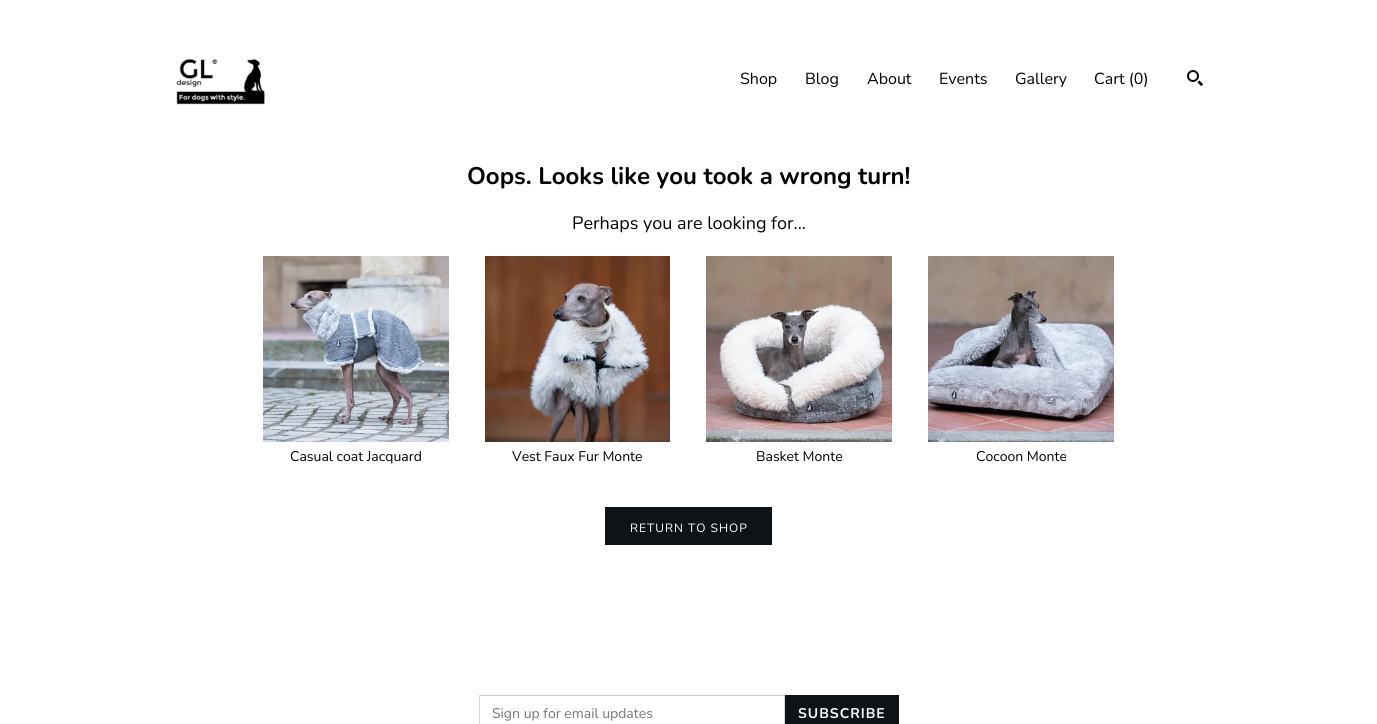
#include <cairo.h>
#include <math.h>
#include <stddef.h>

static cairo_t *ctx;

static void use_color(int r, int g, int b) {
    cairo_set_source_rgb(ctx, r / 255.0, g / 255.0, b / 255.0);
}

static void spaced_text(double x, double y, const char *s, double letter, double word) {
    cairo_move_to(ctx, x, y);
    while (*s) {
        char ch[5] = {0};
        int n = 0;
        do ch[n++] = *s++; while ((*s & 0xC0) == 0x80);
        cairo_show_text(ctx, ch);
        cairo_rel_move_to(ctx, letter + word * (*ch == ' '), 0);
    }
}

static void picture(const char *path, double x, double y, double w, double h) {
    cairo_surface_t *image = cairo_image_surface_create_from_png(path);
    cairo_save(ctx);
    cairo_set_source_surface(ctx, image, x, y);
    cairo_rectangle(ctx, x, y, w, h);
    cairo_fill(ctx);
    cairo_restore(ctx);
    cairo_surface_destroy(image);
}

int main(void) {
    cairo_surface_t *surface = cairo_image_surface_create(CAIRO_FORMAT_RGB24, 1377, 724);
    ctx = cairo_create(surface);
    cairo_font_options_t *options = cairo_font_options_create();
    cairo_font_options_set_hint_metrics(options, CAIRO_HINT_METRICS_OFF);
    cairo_font_options_set_hint_style(options, CAIRO_HINT_STYLE_NONE);
    cairo_set_font_options(ctx, options);
    cairo_set_miter_limit(ctx, 4);
    use_color(255, 255, 255);
    cairo_paint(ctx);
    picture("img1.png", 176, 58, 89, 47);
    cairo_select_font_face(ctx, "Nunito", CAIRO_FONT_SLANT_NORMAL, CAIRO_FONT_WEIGHT_NORMAL);
    cairo_set_font_size(ctx, 16);
    use_color(0, 0, 0);
    cairo_move_to(ctx, 740, 84);
    cairo_show_text(ctx, "Shop");
    cairo_move_to(ctx, 805, 84);
    cairo_show_text(ctx, "Blog");
    cairo_move_to(ctx, 867, 84);
    cairo_show_text(ctx, "About");
    cairo_move_to(ctx, 939, 84);
    cairo_show_text(ctx, "Events");
    cairo_move_to(ctx, 1015, 84);
    cairo_show_text(ctx, "Gallery");
    cairo_move_to(ctx, 1094, 84);
    cairo_show_text(ctx, "Cart (0)");
    picture("img2.png", 1187, 70, 16, 16);
    cairo_select_font_face(ctx, "Nunito", CAIRO_FONT_SLANT_NORMAL, CAIRO_FONT_WEIGHT_BOLD);
    cairo_set_font_size(ctx, 24);
    cairo_move_to(ctx, 467, 184);
    cairo_show_text(ctx, "Oops. Looks like you took a wrong turn!");
    cairo_select_font_face(ctx, "Nunito", CAIRO_FONT_SLANT_NORMAL, CAIRO_FONT_WEIGHT_NORMAL);
    cairo_set_font_size(ctx, 18);
    cairo_move_to(ctx, 572, 229);
    cairo_show_text(ctx, "Perhaps you are looking for...");
    picture("img3.png", 263, 256, 186, 186);
    cairo_set_font_size(ctx, 14);
    cairo_move_to(ctx, 290, 461);
    cairo_show_text(ctx, "Casual coat Jacquard");
    picture("img4.png", 485, 256, 185, 186);
    cairo_move_to(ctx, 512, 461);
    cairo_show_text(ctx, "Vest Faux Fur Monte");
    picture("img5.png", 706, 256, 186, 186);
    cairo_move_to(ctx, 756, 461);
    cairo_show_text(ctx, "Basket Monte");
    picture("img6.png", 928, 256, 186, 186);
    cairo_move_to(ctx, 976, 461);
    cairo_show_text(ctx, "Cocoon Monte");
    use_color(15, 18, 23);
    cairo_rectangle(ctx, 605, 507, 167, 38);
    cairo_fill(ctx);
    cairo_set_font_size(ctx, 12);
    use_color(255, 255, 255);
    spaced_text(630, 532, "RETURN TO SHOP", 1, 0);
    use_color(204, 204, 204);
    cairo_new_path(ctx);
    cairo_move_to(ctx, 479, 695);
    cairo_line_to(ctx, 785, 695);
    cairo_line_to(ctx, 784, 696);
    cairo_line_to(ctx, 480, 696);
    cairo_close_path(ctx);
    cairo_fill(ctx);
    cairo_set_source_rgba(ctx, 0, 0, 0, 0.15);
    cairo_new_path(ctx);
    cairo_move_to(ctx, 785, 695);
    cairo_line_to(ctx, 785, 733);
    cairo_line_to(ctx, 784, 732);
    cairo_line_to(ctx, 784, 696);
    cairo_close_path(ctx);
    cairo_fill(ctx);
    cairo_new_path(ctx);
    cairo_move_to(ctx, 479, 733);
    cairo_line_to(ctx, 479, 695);
    cairo_line_to(ctx, 480, 696);
    cairo_line_to(ctx, 480, 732);
    cairo_close_path(ctx);
    cairo_fill(ctx);
    cairo_set_font_size(ctx, 14);
    use_color(117, 117, 117);
    cairo_move_to(ctx, 492, 718);
    cairo_show_text(ctx, "Sign up for email updates");
    use_color(15, 18, 23);
    cairo_rectangle(ctx, 785, 695, 114, 29);
    cairo_fill(ctx);
    cairo_select_font_face(ctx, "Nunito", CAIRO_FONT_SLANT_NORMAL, CAIRO_FONT_WEIGHT_BOLD);
    use_color(255, 255, 255);
    spaced_text(798, 718, "SUBSCRIBE", 1, 0);
    cairo_surface_write_to_png(surface, "result.png");
    cairo_font_options_destroy(options);
    cairo_destroy(ctx);
    cairo_surface_destroy(surface);
    return 0;
}
